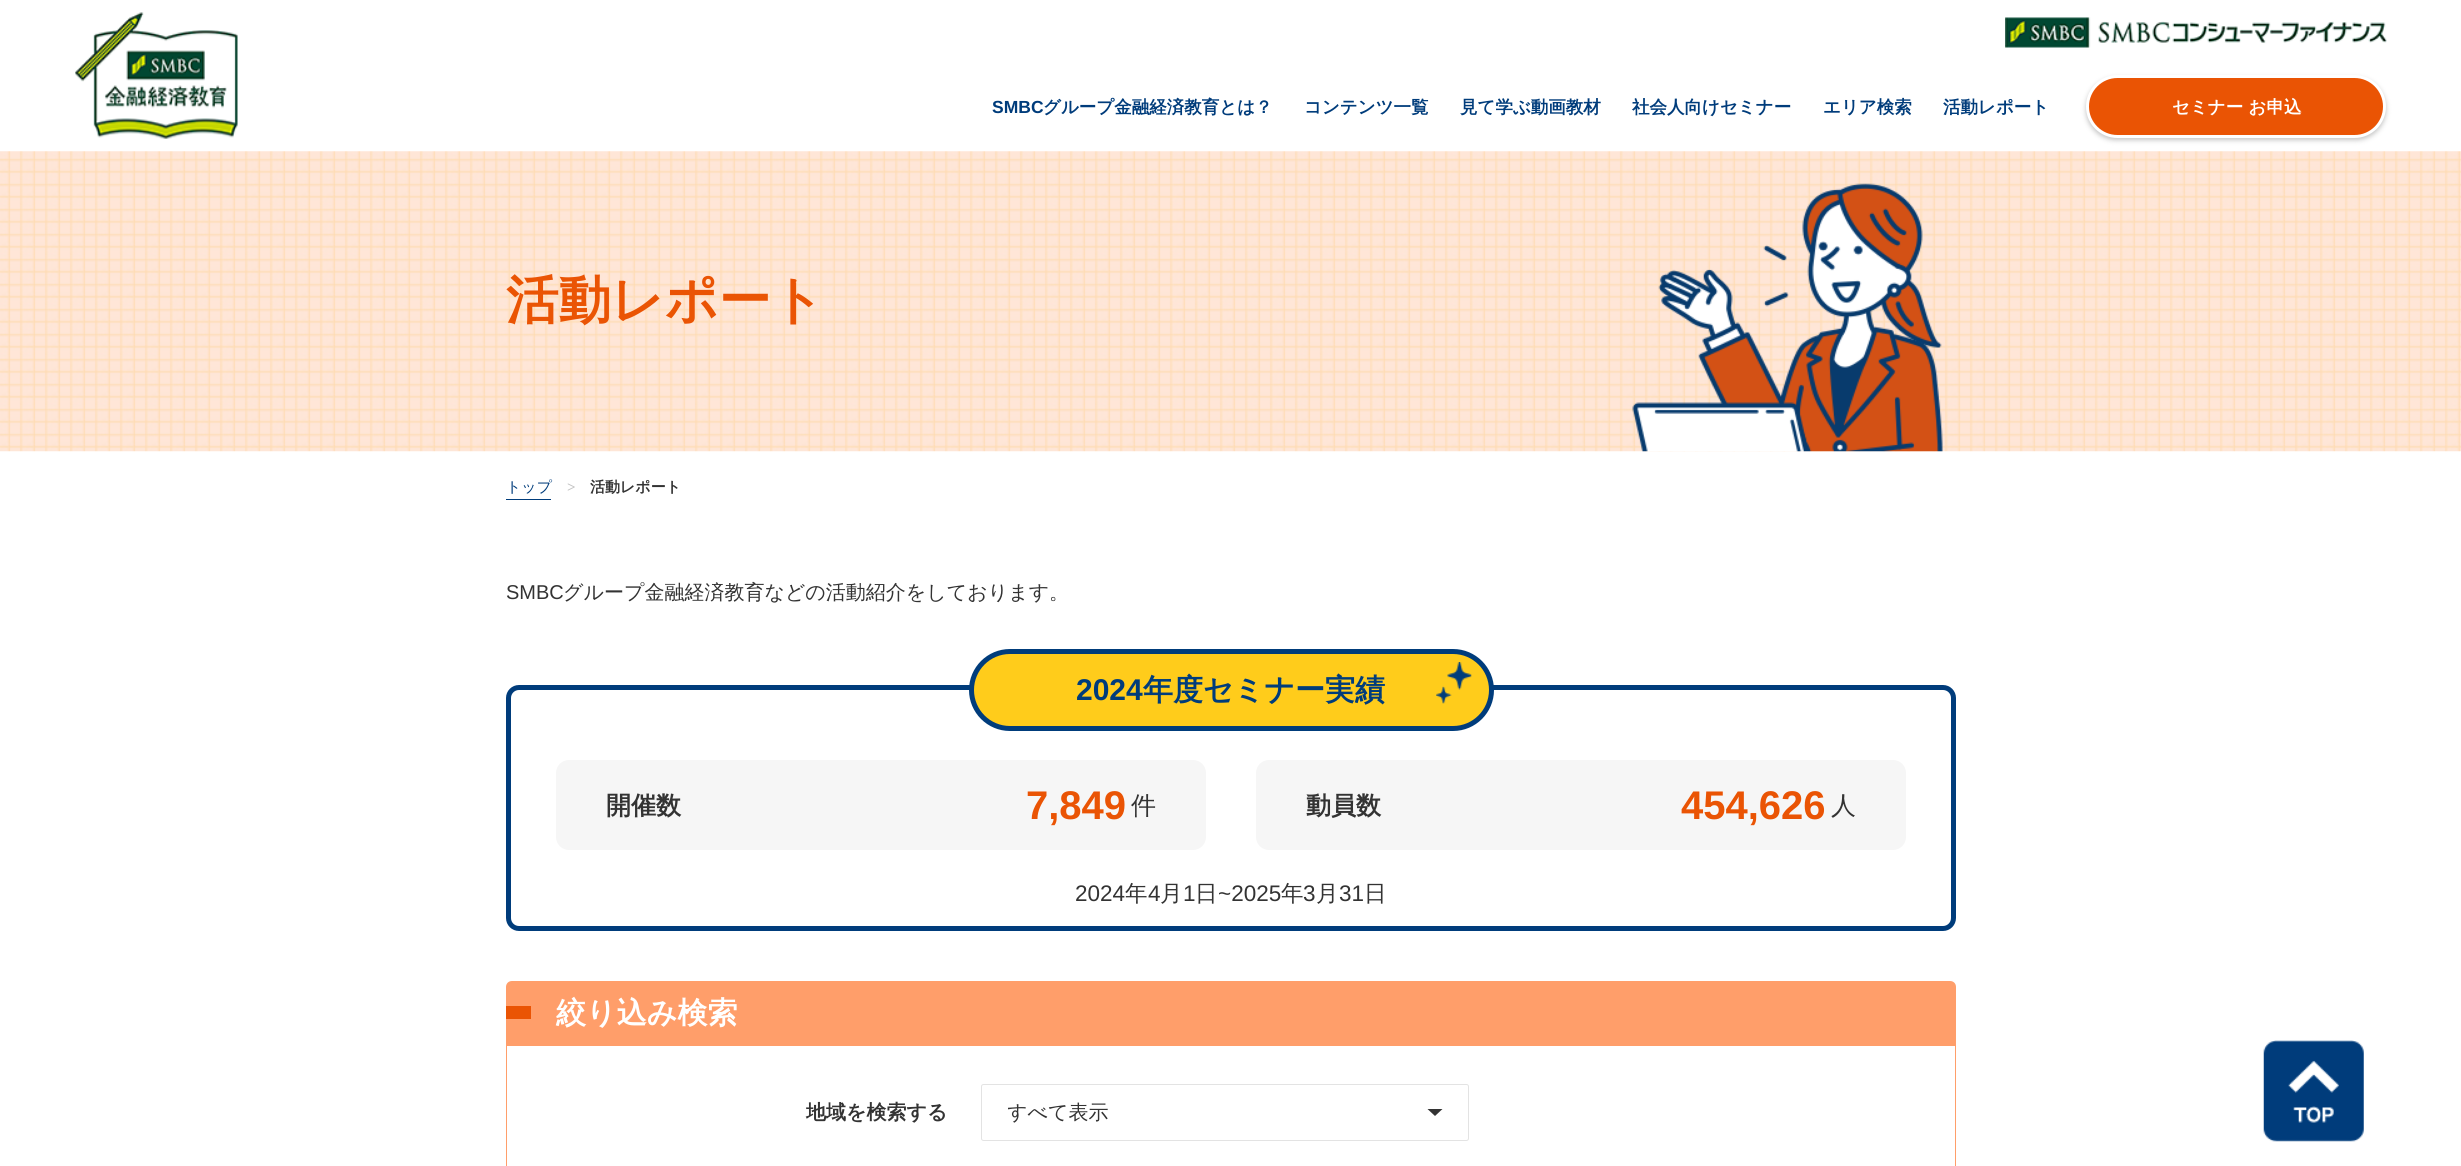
#include <cairo.h>
#include <math.h>
#include <stddef.h>

static cairo_t *ctx;

static void use_color(int r, int g, int b) {
    cairo_set_source_rgb(ctx, r / 255.0, g / 255.0, b / 255.0);
}

static void round_rect(double x, double y, double w, double h, double r) {
    cairo_new_sub_path(ctx);
    cairo_arc(ctx, x + w - r, y + h - r, r, 0, M_PI / 2);
    cairo_arc(ctx, x + r, y + h - r, r, M_PI / 2, M_PI);
    cairo_arc(ctx, x + r, y + r, r, M_PI, 1.5 * M_PI);
    cairo_arc(ctx, x + w - r, y + r, r, 1.5 * M_PI, 2 * M_PI);
    cairo_close_path(ctx);
}

static void shadow(double x, double y, double w, double h, double r, double blur, double alpha) {
    cairo_push_group_with_content(ctx, CAIRO_CONTENT_ALPHA);
    cairo_set_operator(ctx, CAIRO_OPERATOR_SOURCE);
    for (int i = 15; i >= -15 && fmin(w, h) + blur * i / 3 > 0; i -= 2) {
        double e = blur * i / 6;
        cairo_set_source_rgba(ctx, 0, 0, 0, alpha * erfc((i - 1) / 8.5) / 2);
        round_rect(x - e, y - e, w + 2 * e, h + 2 * e, fmax(0, fmin(r + e + blur * .6, fmin(w, h) / 2 + e)));
        cairo_fill(ctx);
    }
    cairo_pattern_t *soft = cairo_pop_group(ctx);
    cairo_mask(ctx, soft);
    cairo_pattern_destroy(soft);
}

static void picture(const char *path, double x, double y, double w, double h) {
    cairo_surface_t *image = cairo_image_surface_create_from_png(path);
    cairo_save(ctx);
    cairo_set_source_surface(ctx, image, x, y);
    cairo_rectangle(ctx, x, y, w, h);
    cairo_fill(ctx);
    cairo_restore(ctx);
    cairo_surface_destroy(image);
}

int main(void) {
    cairo_surface_t *surface = cairo_image_surface_create(CAIRO_FORMAT_RGB24, 2461, 1166);
    ctx = cairo_create(surface);
    cairo_font_options_t *options = cairo_font_options_create();
    cairo_font_options_set_hint_metrics(options, CAIRO_HINT_METRICS_OFF);
    cairo_font_options_set_hint_style(options, CAIRO_HINT_STYLE_NONE);
    cairo_set_font_options(ctx, options);
    cairo_set_miter_limit(ctx, 4);
    use_color(255, 255, 255);
    cairo_paint(ctx);
    picture("img1.png", 75, 12, 163, 127);
    picture("img2.png", 2005, 17, 382, 31);
    cairo_select_font_face(ctx, "Liberation Sans", CAIRO_FONT_SLANT_NORMAL, CAIRO_FONT_WEIGHT_BOLD);
    cairo_set_font_size(ctx, 17.5);
    use_color(0, 60, 123);
    cairo_move_to(ctx, 992, 113);
    cairo_show_text(ctx, "SMBC");
    cairo_select_font_face(ctx, "WenQuanYi Zen Hei", CAIRO_FONT_SLANT_NORMAL, CAIRO_FONT_WEIGHT_BOLD);
    cairo_move_to(ctx, 1043, 113);
    cairo_show_text(ctx, "グループ金融経済教育とは？");
    cairo_move_to(ctx, 1304, 113);
    cairo_show_text(ctx, "コンテンツ一覧");
    cairo_move_to(ctx, 1460, 113);
    cairo_show_text(ctx, "見て学ぶ動画教材");
    cairo_move_to(ctx, 1632, 113);
    cairo_show_text(ctx, "社会人向けセミナー");
    cairo_move_to(ctx, 1823, 113);
    cairo_show_text(ctx, "エリア検索");
    cairo_move_to(ctx, 1943, 113);
    cairo_show_text(ctx, "活動レポート");
    use_color(195, 195, 195);
    shadow(2086, 78, 300, 62, 31, 2.5, 1);
    use_color(234, 84, 4);
    round_rect(2087.5, 76.5, 297, 60, 30);
    cairo_fill_preserve(ctx);
    use_color(255, 255, 255);
    cairo_set_line_width(ctx, 3);
    cairo_stroke(ctx);
    cairo_move_to(ctx, 2172, 113);
    cairo_show_text(ctx, "セミナー お申込");
    picture("img3.png", 0, 151, 2461, 301);
    picture("img4.png", 1632, 183, 311, 269);
    cairo_set_font_size(ctx, 52.5);
    use_color(234, 84, 4);
    cairo_move_to(ctx, 506, 318);
    cairo_show_text(ctx, "活動レポート");
    cairo_select_font_face(ctx, "WenQuanYi Zen Hei Medium", CAIRO_FONT_SLANT_NORMAL, CAIRO_FONT_WEIGHT_NORMAL);
    cairo_set_font_size(ctx, 15);
    use_color(0, 60, 123);
    cairo_move_to(ctx, 506, 492);
    cairo_show_text(ctx, "トップ");
    cairo_rectangle(ctx, 506, 499, 45, 1);
    cairo_fill(ctx);
    cairo_select_font_face(ctx, "Liberation Serif", CAIRO_FONT_SLANT_NORMAL, CAIRO_FONT_WEIGHT_BOLD);
    use_color(195, 195, 195);
    cairo_move_to(ctx, 567, 492);
    cairo_show_text(ctx, ">");
    cairo_select_font_face(ctx, "WenQuanYi Zen Hei", CAIRO_FONT_SLANT_NORMAL, CAIRO_FONT_WEIGHT_BOLD);
    use_color(51, 51, 51);
    cairo_move_to(ctx, 590, 492);
    cairo_show_text(ctx, "活動レポート");
    cairo_select_font_face(ctx, "Liberation Sans", CAIRO_FONT_SLANT_NORMAL, CAIRO_FONT_WEIGHT_NORMAL);
    cairo_set_font_size(ctx, 20);
    cairo_move_to(ctx, 506, 599);
    cairo_show_text(ctx, "SMBC");
    cairo_select_font_face(ctx, "WenQuanYi Zen Hei Medium", CAIRO_FONT_SLANT_NORMAL, CAIRO_FONT_WEIGHT_NORMAL);
    cairo_move_to(ctx, 563, 599);
    cairo_show_text(ctx, "グループ金融経済教育などの活動紹介をしております。");
    round_rect(508.5, 687.5, 1445, 241, 10.5);
    use_color(0, 60, 123);
    cairo_set_line_width(ctx, 5);
    cairo_stroke(ctx);
    use_color(255, 204, 27);
    round_rect(971.5, 651.5, 520, 77, 38.5);
    cairo_fill_preserve(ctx);
    use_color(0, 60, 123);
    cairo_stroke(ctx);
    cairo_select_font_face(ctx, "Liberation Sans", CAIRO_FONT_SLANT_NORMAL, CAIRO_FONT_WEIGHT_BOLD);
    cairo_set_font_size(ctx, 30);
    cairo_move_to(ctx, 1076, 700);
    cairo_show_text(ctx, "2024");
    cairo_select_font_face(ctx, "WenQuanYi Zen Hei", CAIRO_FONT_SLANT_NORMAL, CAIRO_FONT_WEIGHT_BOLD);
    cairo_move_to(ctx, 1143, 700);
    cairo_show_text(ctx, "年度セミナー実績");
    picture("img5.png", 1436, 662, 36, 42);
    use_color(246, 246, 246);
    round_rect(556, 760, 650, 90, 13);
    cairo_fill(ctx);
    cairo_set_font_size(ctx, 25);
    use_color(51, 51, 51);
    cairo_move_to(ctx, 606, 814);
    cairo_show_text(ctx, "開催数");
    cairo_select_font_face(ctx, "Liberation Sans", CAIRO_FONT_SLANT_NORMAL, CAIRO_FONT_WEIGHT_BOLD);
    cairo_set_font_size(ctx, 40);
    use_color(234, 84, 4);
    cairo_move_to(ctx, 1026, 819);
    cairo_show_text(ctx, "7,849");
    cairo_select_font_face(ctx, "WenQuanYi Zen Hei Medium", CAIRO_FONT_SLANT_NORMAL, CAIRO_FONT_WEIGHT_NORMAL);
    cairo_set_font_size(ctx, 25);
    use_color(51, 51, 51);
    cairo_move_to(ctx, 1131, 814);
    cairo_show_text(ctx, "件");
    use_color(246, 246, 246);
    round_rect(1256, 760, 650, 90, 13);
    cairo_fill(ctx);
    cairo_select_font_face(ctx, "WenQuanYi Zen Hei", CAIRO_FONT_SLANT_NORMAL, CAIRO_FONT_WEIGHT_BOLD);
    use_color(51, 51, 51);
    cairo_move_to(ctx, 1306, 814);
    cairo_show_text(ctx, "動員数");
    cairo_select_font_face(ctx, "Liberation Sans", CAIRO_FONT_SLANT_NORMAL, CAIRO_FONT_WEIGHT_BOLD);
    cairo_set_font_size(ctx, 40);
    use_color(234, 84, 4);
    cairo_move_to(ctx, 1681, 819);
    cairo_show_text(ctx, "454,626");
    cairo_select_font_face(ctx, "WenQuanYi Zen Hei Medium", CAIRO_FONT_SLANT_NORMAL, CAIRO_FONT_WEIGHT_NORMAL);
    cairo_set_font_size(ctx, 25);
    use_color(51, 51, 51);
    cairo_move_to(ctx, 1831, 814);
    cairo_show_text(ctx, "人");
    cairo_select_font_face(ctx, "Liberation Sans", CAIRO_FONT_SLANT_NORMAL, CAIRO_FONT_WEIGHT_NORMAL);
    cairo_set_font_size(ctx, 22.5);
    cairo_move_to(ctx, 1075, 901);
    cairo_show_text(ctx, "2024");
    cairo_select_font_face(ctx, "WenQuanYi Zen Hei Medium", CAIRO_FONT_SLANT_NORMAL, CAIRO_FONT_WEIGHT_NORMAL);
    cairo_move_to(ctx, 1125, 901);
    cairo_show_text(ctx, "年");
    cairo_select_font_face(ctx, "Liberation Sans", CAIRO_FONT_SLANT_NORMAL, CAIRO_FONT_WEIGHT_NORMAL);
    cairo_move_to(ctx, 1148, 901);
    cairo_show_text(ctx, "4");
    cairo_select_font_face(ctx, "WenQuanYi Zen Hei Medium", CAIRO_FONT_SLANT_NORMAL, CAIRO_FONT_WEIGHT_NORMAL);
    cairo_move_to(ctx, 1160, 901);
    cairo_show_text(ctx, "月");
    cairo_select_font_face(ctx, "Liberation Sans", CAIRO_FONT_SLANT_NORMAL, CAIRO_FONT_WEIGHT_NORMAL);
    cairo_move_to(ctx, 1183, 901);
    cairo_show_text(ctx, "1");
    cairo_select_font_face(ctx, "WenQuanYi Zen Hei Medium", CAIRO_FONT_SLANT_NORMAL, CAIRO_FONT_WEIGHT_NORMAL);
    cairo_move_to(ctx, 1195, 901);
    cairo_show_text(ctx, "日");
    cairo_select_font_face(ctx, "Liberation Sans", CAIRO_FONT_SLANT_NORMAL, CAIRO_FONT_WEIGHT_NORMAL);
    cairo_move_to(ctx, 1218, 901);
    cairo_show_text(ctx, "~2025");
    cairo_select_font_face(ctx, "WenQuanYi Zen Hei Medium", CAIRO_FONT_SLANT_NORMAL, CAIRO_FONT_WEIGHT_NORMAL);
    cairo_move_to(ctx, 1281, 901);
    cairo_show_text(ctx, "年");
    cairo_select_font_face(ctx, "Liberation Sans", CAIRO_FONT_SLANT_NORMAL, CAIRO_FONT_WEIGHT_NORMAL);
    cairo_move_to(ctx, 1303, 901);
    cairo_show_text(ctx, "3");
    cairo_select_font_face(ctx, "WenQuanYi Zen Hei Medium", CAIRO_FONT_SLANT_NORMAL, CAIRO_FONT_WEIGHT_NORMAL);
    cairo_move_to(ctx, 1316, 901);
    cairo_show_text(ctx, "月");
    cairo_select_font_face(ctx, "Liberation Sans", CAIRO_FONT_SLANT_NORMAL, CAIRO_FONT_WEIGHT_NORMAL);
    cairo_move_to(ctx, 1339, 901);
    cairo_show_text(ctx, "31");
    cairo_select_font_face(ctx, "WenQuanYi Zen Hei Medium", CAIRO_FONT_SLANT_NORMAL, CAIRO_FONT_WEIGHT_NORMAL);
    cairo_move_to(ctx, 1364, 901);
    cairo_show_text(ctx, "日");
    use_color(255, 158, 106);
    cairo_new_path(ctx);
    cairo_move_to(ctx, 512, 981);
    cairo_line_to(ctx, 1950, 981);
    cairo_curve_to(ctx, 1953.5, 981, 1956, 983.5, 1956, 987);
    cairo_line_to(ctx, 1956, 1045);
    cairo_line_to(ctx, 506, 1045);
    cairo_line_to(ctx, 506, 987);
    cairo_curve_to(ctx, 506, 983.5, 508.5, 981, 512, 981);
    cairo_close_path(ctx);
    cairo_fill(ctx);
    use_color(234, 84, 4);
    cairo_rectangle(ctx, 506, 1006, 25, 13);
    cairo_fill(ctx);
    cairo_select_font_face(ctx, "WenQuanYi Zen Hei", CAIRO_FONT_SLANT_NORMAL, CAIRO_FONT_WEIGHT_BOLD);
    cairo_set_font_size(ctx, 30);
    use_color(255, 255, 255);
    cairo_move_to(ctx, 556, 1023);
    cairo_show_text(ctx, "絞り込み検索");
    cairo_rectangle(ctx, 506.5, 1045.5, 1449, 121);
    use_color(255, 158, 106);
    cairo_set_line_width(ctx, 1);
    cairo_stroke(ctx);
    cairo_set_font_size(ctx, 20);
    use_color(51, 51, 51);
    cairo_move_to(ctx, 806, 1119);
    cairo_show_text(ctx, "地域を検索する");
    round_rect(981.5, 1084.5, 487, 56, 2);
    use_color(227, 227, 227);
    cairo_stroke(ctx);
    cairo_save(ctx);
    cairo_rectangle(ctx, 1008, 1095, 435, 35);
    cairo_clip(ctx);
    cairo_select_font_face(ctx, "WenQuanYi Zen Hei Medium", CAIRO_FONT_SLANT_NORMAL, CAIRO_FONT_WEIGHT_NORMAL);
    use_color(51, 51, 51);
    cairo_move_to(ctx, 1007, 1119);
    cairo_show_text(ctx, "すべて表示");
    cairo_restore(ctx);
    use_color(51, 51, 51);
    cairo_new_path(ctx);
    cairo_move_to(ctx, 1427.5, 1109);
    cairo_line_to(ctx, 1442.5, 1109);
    cairo_line_to(ctx, 1435, 1116);
    cairo_close_path(ctx);
    cairo_fill(ctx);
    picture("img6.png", 2263, 1040, 101, 102);
    cairo_surface_write_to_png(surface, "result.png");
    cairo_font_options_destroy(options);
    cairo_destroy(ctx);
    cairo_surface_destroy(surface);
    return 0;
}
